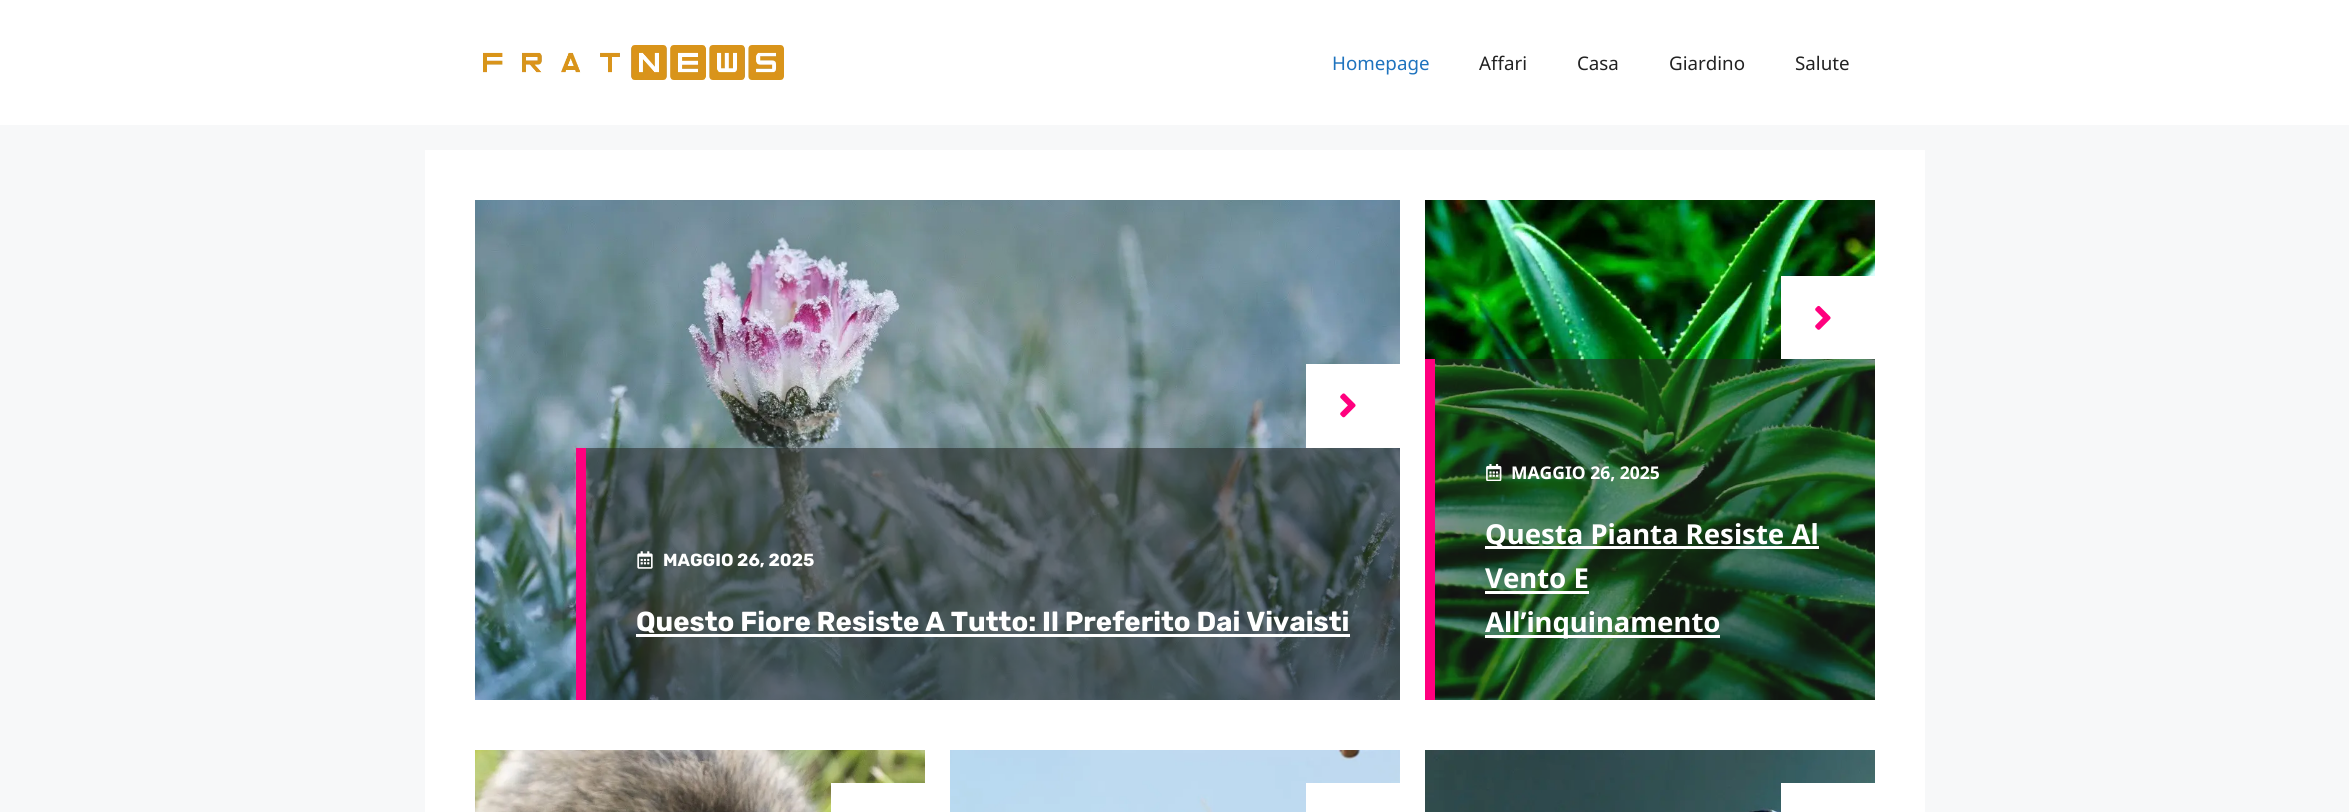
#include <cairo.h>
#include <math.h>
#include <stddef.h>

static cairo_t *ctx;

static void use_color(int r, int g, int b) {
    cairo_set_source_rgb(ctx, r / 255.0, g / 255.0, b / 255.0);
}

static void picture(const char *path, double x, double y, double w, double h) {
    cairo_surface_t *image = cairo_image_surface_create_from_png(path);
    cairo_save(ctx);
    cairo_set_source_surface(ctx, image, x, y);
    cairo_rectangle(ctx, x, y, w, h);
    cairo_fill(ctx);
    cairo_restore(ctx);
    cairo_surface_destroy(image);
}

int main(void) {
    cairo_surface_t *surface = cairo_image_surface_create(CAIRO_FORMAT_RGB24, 2349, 812);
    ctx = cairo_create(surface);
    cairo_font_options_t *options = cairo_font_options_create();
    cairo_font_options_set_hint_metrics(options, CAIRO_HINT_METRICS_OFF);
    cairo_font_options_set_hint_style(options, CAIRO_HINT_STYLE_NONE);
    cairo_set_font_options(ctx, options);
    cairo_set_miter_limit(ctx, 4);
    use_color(247, 248, 249);
    cairo_paint(ctx);
    use_color(255, 255, 255);
    cairo_rectangle(ctx, 0, 0, 2349, 125);
    cairo_fill(ctx);
    picture("img1.png", 483, 45, 301, 35);
    cairo_select_font_face(ctx, "Noto Sans", CAIRO_FONT_SLANT_NORMAL, CAIRO_FONT_WEIGHT_NORMAL);
    cairo_set_font_size(ctx, 18.75);
    use_color(30, 115, 190);
    cairo_move_to(ctx, 1332, 70);
    cairo_show_text(ctx, "Homepage");
    use_color(34, 34, 34);
    cairo_move_to(ctx, 1479, 70);
    cairo_show_text(ctx, "Affari");
    cairo_move_to(ctx, 1577, 70);
    cairo_show_text(ctx, "Casa");
    cairo_move_to(ctx, 1669, 70);
    cairo_show_text(ctx, "Giardino");
    cairo_move_to(ctx, 1795, 70);
    cairo_show_text(ctx, "Salute");
    use_color(255, 255, 255);
    cairo_rectangle(ctx, 425, 150, 1500, 662);
    cairo_fill(ctx);
    picture("img2.png", 475, 200, 925, 500);
    cairo_rectangle(ctx, 1306, 364, 94, 84);
    cairo_fill(ctx);
    picture("img3.png", 1340, 393, 16, 25);
    cairo_set_source_rgba(ctx, 0.129, 0.129, 0.129, 0.51);
    cairo_rectangle(ctx, 586, 448, 814, 252);
    cairo_fill(ctx);
    use_color(255, 0, 126);
    cairo_rectangle(ctx, 576, 448, 10, 252);
    cairo_fill(ctx);
    picture("img4.png", 637, 551, 16, 18);
    cairo_select_font_face(ctx, "Rubik", CAIRO_FONT_SLANT_NORMAL, CAIRO_FONT_WEIGHT_BOLD);
    cairo_set_font_size(ctx, 17.5);
    use_color(255, 255, 255);
    cairo_move_to(ctx, 663, 566);
    cairo_show_text(ctx, "MAGGIO 26, 2025");
    cairo_set_font_size(ctx, 27.5);
    cairo_move_to(ctx, 636, 631);
    cairo_show_text(ctx, "Questo Fiore Resiste A Tutto: Il Preferito Dai Vivaisti");
    cairo_rectangle(ctx, 636, 634, 714, 3);
    cairo_fill(ctx);
    picture("img5.png", 1425, 200, 450, 500);
    cairo_rectangle(ctx, 1781, 276, 94, 83);
    cairo_fill(ctx);
    picture("img6.png", 1815, 305, 16, 25);
    cairo_set_source_rgba(ctx, 0.129, 0.129, 0.129, 0.51);
    cairo_rectangle(ctx, 1435, 359, 440, 341);
    cairo_fill(ctx);
    use_color(255, 0, 126);
    cairo_rectangle(ctx, 1425, 359, 10, 341);
    cairo_fill(ctx);
    picture("img7.png", 1486, 464, 16, 17);
    cairo_select_font_face(ctx, "Noto Sans", CAIRO_FONT_SLANT_NORMAL, CAIRO_FONT_WEIGHT_BOLD);
    cairo_set_font_size(ctx, 17.5);
    use_color(255, 255, 255);
    cairo_move_to(ctx, 1511, 479);
    cairo_show_text(ctx, "MAGGIO 26, 2025");
    cairo_rectangle(ctx, 1485, 546, 334, 3);
    cairo_fill(ctx);
    cairo_set_font_size(ctx, 27.5);
    cairo_move_to(ctx, 1485, 544);
    cairo_show_text(ctx, "Questa Pianta Resiste Al");
    cairo_move_to(ctx, 1485, 588);
    cairo_show_text(ctx, "Vento E");
    cairo_rectangle(ctx, 1485, 591, 104, 3);
    cairo_fill(ctx);
    cairo_rectangle(ctx, 1485, 635, 235, 3);
    cairo_fill(ctx);
    cairo_move_to(ctx, 1485, 632);
    cairo_show_text(ctx, "All’inquinamento");
    picture("img8.png", 475, 750, 450, 62);
    cairo_rectangle(ctx, 831, 783, 94, 29);
    cairo_fill(ctx);
    picture("img9.png", 950, 750, 450, 62);
    cairo_rectangle(ctx, 1306, 783, 94, 29);
    cairo_fill(ctx);
    picture("img10.png", 1425, 750, 450, 62);
    cairo_rectangle(ctx, 1781, 783, 94, 29);
    cairo_fill(ctx);
    cairo_surface_write_to_png(surface, "result.png");
    cairo_font_options_destroy(options);
    cairo_destroy(ctx);
    cairo_surface_destroy(surface);
    return 0;
}
